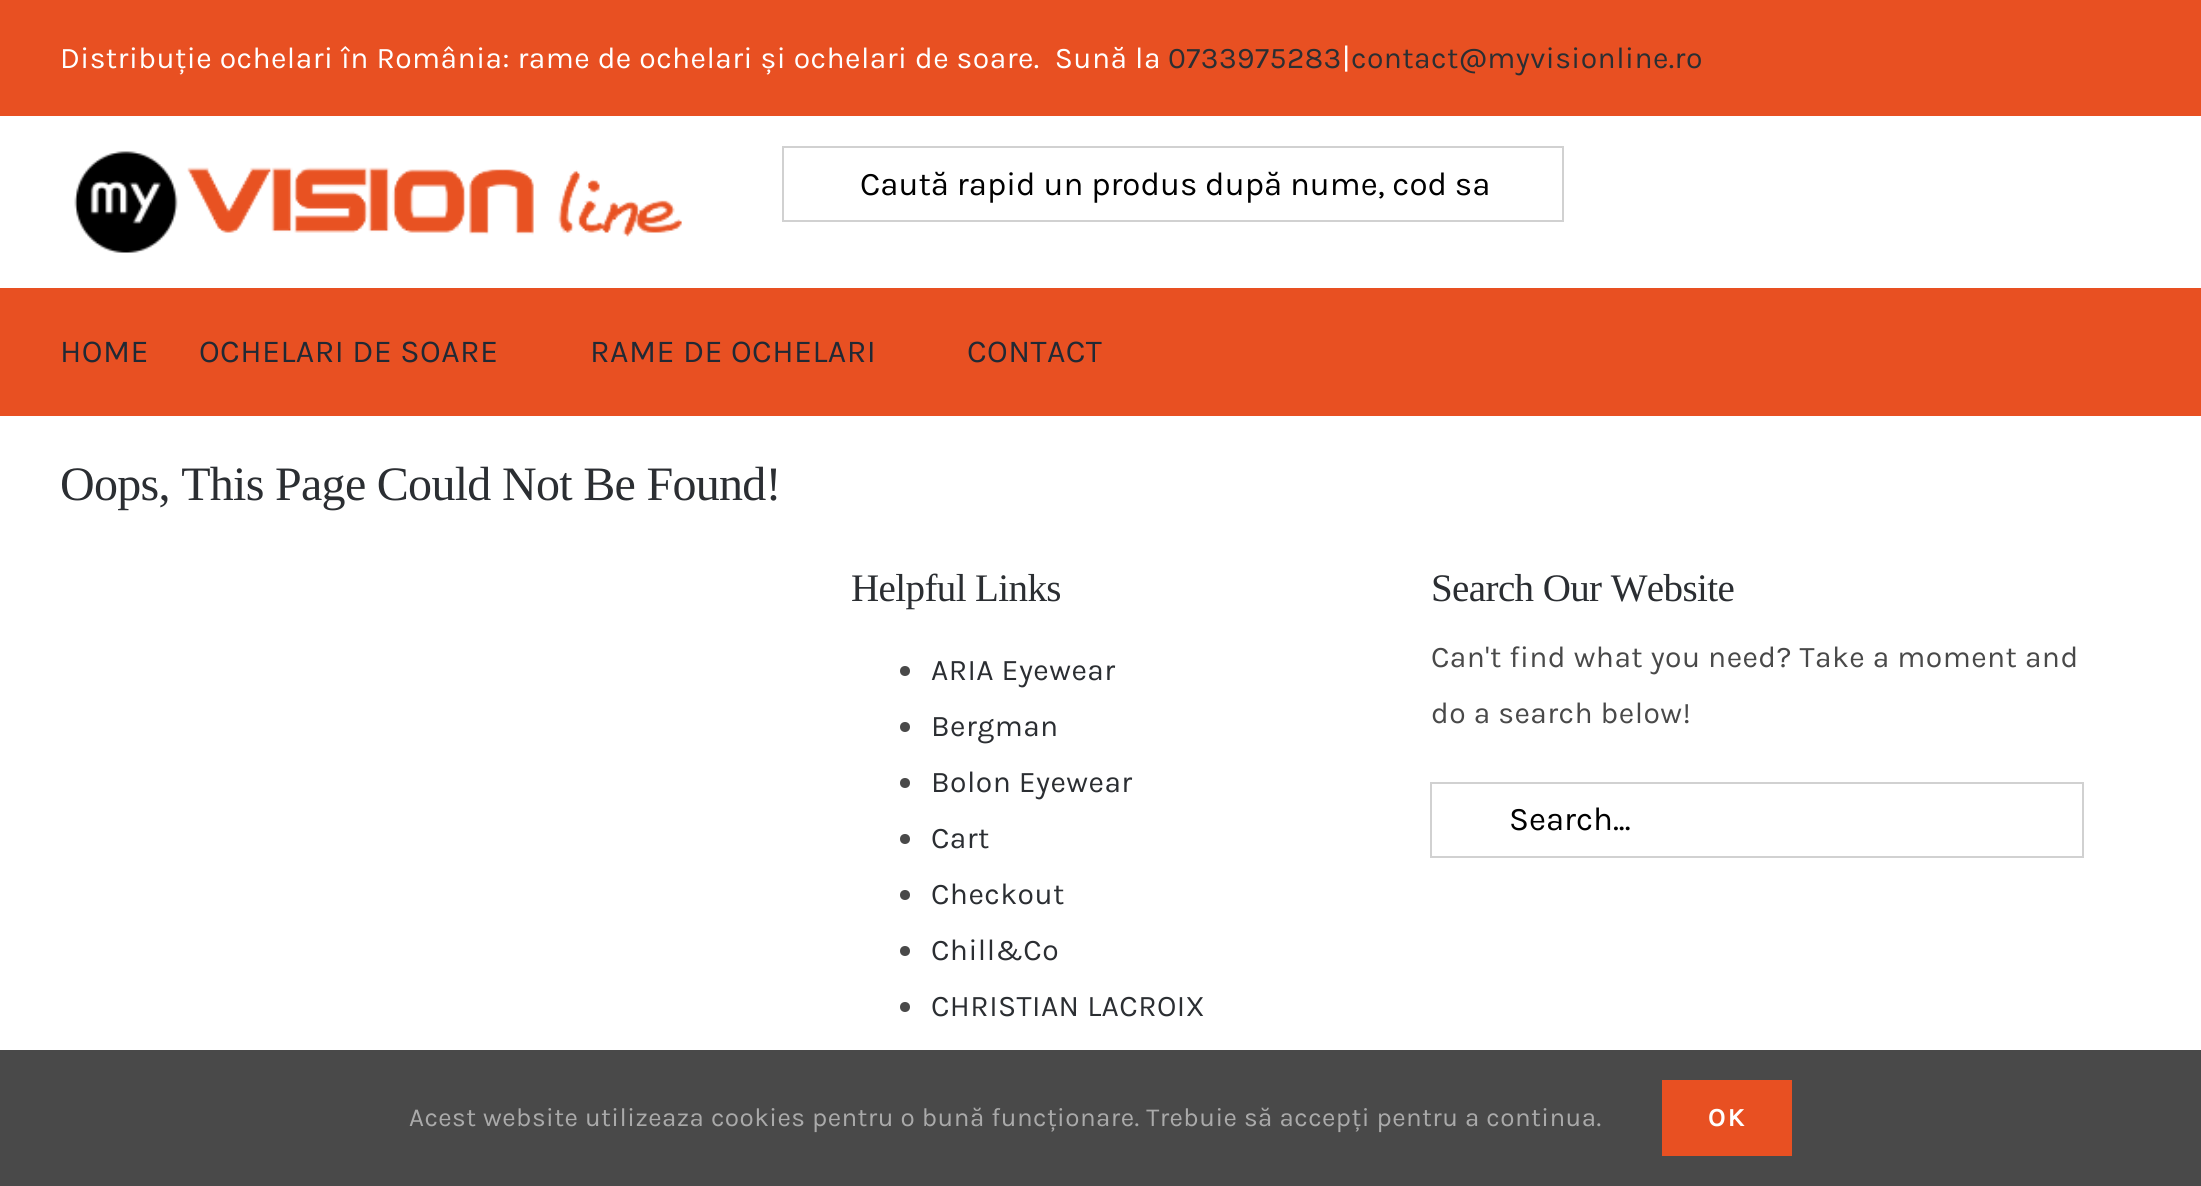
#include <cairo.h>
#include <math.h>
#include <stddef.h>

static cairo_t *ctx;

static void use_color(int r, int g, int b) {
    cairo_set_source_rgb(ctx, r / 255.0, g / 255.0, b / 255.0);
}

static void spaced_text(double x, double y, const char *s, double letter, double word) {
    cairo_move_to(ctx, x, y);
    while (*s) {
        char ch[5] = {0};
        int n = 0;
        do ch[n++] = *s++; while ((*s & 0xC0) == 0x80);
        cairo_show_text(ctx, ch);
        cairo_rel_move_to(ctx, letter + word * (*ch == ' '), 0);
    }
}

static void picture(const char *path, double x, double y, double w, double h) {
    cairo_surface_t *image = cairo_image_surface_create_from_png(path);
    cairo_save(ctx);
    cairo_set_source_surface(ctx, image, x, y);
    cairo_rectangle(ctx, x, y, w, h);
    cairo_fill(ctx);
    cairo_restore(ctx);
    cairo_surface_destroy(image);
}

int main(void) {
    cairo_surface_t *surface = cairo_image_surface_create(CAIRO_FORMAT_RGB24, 2201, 1186);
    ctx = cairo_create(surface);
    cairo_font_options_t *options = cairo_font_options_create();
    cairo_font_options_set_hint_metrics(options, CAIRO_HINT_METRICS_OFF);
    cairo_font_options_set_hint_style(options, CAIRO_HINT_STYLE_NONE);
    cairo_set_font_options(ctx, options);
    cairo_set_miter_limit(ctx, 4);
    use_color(255, 255, 255);
    cairo_paint(ctx);
    use_color(232, 80, 34);
    cairo_rectangle(ctx, 0, 0, 2201, 116);
    cairo_fill(ctx);
    cairo_select_font_face(ctx, "Karla", CAIRO_FONT_SLANT_NORMAL, CAIRO_FONT_WEIGHT_NORMAL);
    cairo_set_font_size(ctx, 30);
    use_color(255, 255, 255);
    spaced_text(60, 68, "Distribuție ochelari în România: rame de ochelari și ochelari de soare.  Sună la", 0.45, 0);
    use_color(43, 46, 50);
    spaced_text(1168, 68, "0733975283", 0.45, 0);
    use_color(255, 255, 255);
    spaced_text(1342, 68, "|", 0.45, 0);
    use_color(43, 46, 50);
    spaced_text(1351, 68, "contact@myvisionline.ro", 0.45, 0);
    picture("img1.png", 74, 151, 608, 102);
    cairo_rectangle(ctx, 783, 147, 780, 74);
    use_color(209, 209, 209);
    cairo_stroke(ctx);
    cairo_set_font_size(ctx, 33);
    use_color(0, 0, 0);
    cairo_move_to(ctx, 860, 195);
    cairo_show_text(ctx, "Caută rapid un produs după nume, cod sa");
    use_color(232, 80, 34);
    cairo_rectangle(ctx, 0, 288, 2201, 128);
    cairo_fill(ctx);
    cairo_set_font_size(ctx, 32);
    use_color(33, 41, 52);
    spaced_text(60, 362, "HOME", 0.45, 0);
    spaced_text(199, 362, "OCHELARI DE SOARE", 0.45, 0);
    spaced_text(590, 362, "RAME DE OCHELARI", 0.45, 0);
    spaced_text(967, 362, "CONTACT", 0.45, 0);
    cairo_select_font_face(ctx, "Liberation Serif", CAIRO_FONT_SLANT_NORMAL, CAIRO_FONT_WEIGHT_NORMAL);
    cairo_set_font_size(ctx, 48);
    use_color(43, 46, 50);
    spaced_text(60, 500, "Oops, This Page Could Not Be Found!", -0.7, 0);
    cairo_set_font_size(ctx, 39);
    spaced_text(851, 601, "Helpful Links", -0.6, 0);
    use_color(73, 73, 73);
    cairo_new_path(ctx);
    cairo_arc(ctx, 905, 671, 5, 0, 2 * M_PI);
    cairo_fill(ctx);
    cairo_select_font_face(ctx, "Karla", CAIRO_FONT_SLANT_NORMAL, CAIRO_FONT_WEIGHT_NORMAL);
    cairo_set_font_size(ctx, 30);
    use_color(43, 46, 50);
    spaced_text(931, 680, "ARIA Eyewear", 0.45, 0);
    use_color(73, 73, 73);
    cairo_new_path(ctx);
    cairo_arc(ctx, 905, 727, 5, 0, 2 * M_PI);
    cairo_fill(ctx);
    use_color(43, 46, 50);
    spaced_text(931, 736, "Bergman", 0.45, 0);
    use_color(73, 73, 73);
    cairo_new_path(ctx);
    cairo_arc(ctx, 905, 783, 5, 0, 2 * M_PI);
    cairo_fill(ctx);
    use_color(43, 46, 50);
    spaced_text(931, 792, "Bolon Eyewear", 0.45, 0);
    use_color(73, 73, 73);
    cairo_new_path(ctx);
    cairo_arc(ctx, 905, 839, 5, 0, 2 * M_PI);
    cairo_fill(ctx);
    use_color(43, 46, 50);
    spaced_text(931, 848, "Cart", 0.45, 0);
    use_color(73, 73, 73);
    cairo_new_path(ctx);
    cairo_arc(ctx, 905, 895, 5, 0, 2 * M_PI);
    cairo_fill(ctx);
    use_color(43, 46, 50);
    spaced_text(931, 904, "Checkout", 0.45, 0);
    use_color(73, 73, 73);
    cairo_new_path(ctx);
    cairo_arc(ctx, 905, 951, 5, 0, 2 * M_PI);
    cairo_fill(ctx);
    use_color(43, 46, 50);
    spaced_text(931, 960, "Chill&Co", 0.45, 0);
    use_color(73, 73, 73);
    cairo_new_path(ctx);
    cairo_arc(ctx, 905, 1007, 5, 0, 2 * M_PI);
    cairo_fill(ctx);
    use_color(43, 46, 50);
    spaced_text(931, 1016, "CHRISTIAN LACROIX", 0.45, 0);
    cairo_select_font_face(ctx, "Liberation Serif", CAIRO_FONT_SLANT_NORMAL, CAIRO_FONT_WEIGHT_NORMAL);
    cairo_set_font_size(ctx, 39);
    spaced_text(1431, 601, "Search Our Website", -0.6, 0);
    cairo_select_font_face(ctx, "Karla", CAIRO_FONT_SLANT_NORMAL, CAIRO_FONT_WEIGHT_NORMAL);
    cairo_set_font_size(ctx, 30);
    use_color(73, 73, 73);
    spaced_text(1431, 667, "Can't find what you need? Take a moment and", 0.45, 0);
    spaced_text(1431, 723, "do a search below!", 0.45, 0);
    cairo_rectangle(ctx, 1431, 783, 652, 74);
    use_color(209, 209, 209);
    cairo_stroke(ctx);
    cairo_set_font_size(ctx, 33);
    use_color(0, 0, 0);
    cairo_move_to(ctx, 1509, 830);
    cairo_show_text(ctx, "Search...");
    use_color(73, 73, 73);
    cairo_rectangle(ctx, 0, 1050, 2201, 136);
    cairo_fill(ctx);
    cairo_set_font_size(ctx, 26);
    use_color(170, 170, 170);
    spaced_text(409, 1126, "Acest website utilizeaza cookies pentru o bună funcționare. Trebuie să accepți pentru a continua.", 0.45, 0);
    use_color(232, 80, 34);
    cairo_rectangle(ctx, 1662, 1080, 130, 76);
    cairo_fill(ctx);
    cairo_select_font_face(ctx, "Karla", CAIRO_FONT_SLANT_NORMAL, CAIRO_FONT_WEIGHT_BOLD);
    use_color(255, 255, 255);
    spaced_text(1708, 1126, "OK", 2, 0);
    cairo_surface_write_to_png(surface, "result.png");
    cairo_font_options_destroy(options);
    cairo_destroy(ctx);
    cairo_surface_destroy(surface);
    return 0;
}
